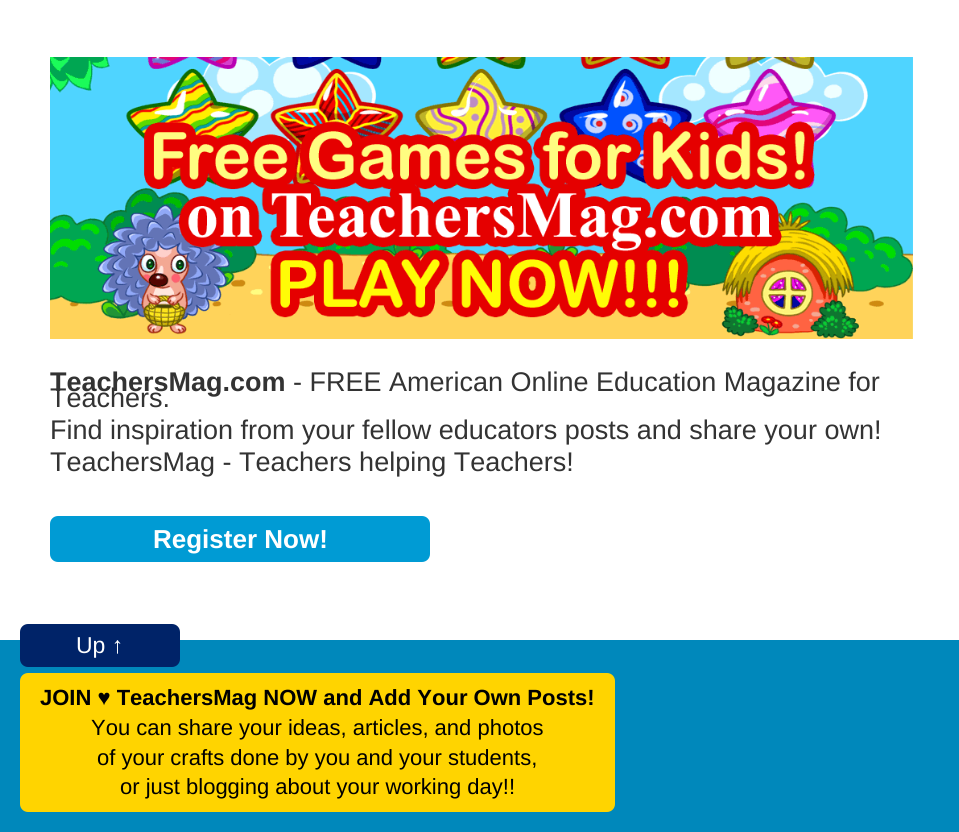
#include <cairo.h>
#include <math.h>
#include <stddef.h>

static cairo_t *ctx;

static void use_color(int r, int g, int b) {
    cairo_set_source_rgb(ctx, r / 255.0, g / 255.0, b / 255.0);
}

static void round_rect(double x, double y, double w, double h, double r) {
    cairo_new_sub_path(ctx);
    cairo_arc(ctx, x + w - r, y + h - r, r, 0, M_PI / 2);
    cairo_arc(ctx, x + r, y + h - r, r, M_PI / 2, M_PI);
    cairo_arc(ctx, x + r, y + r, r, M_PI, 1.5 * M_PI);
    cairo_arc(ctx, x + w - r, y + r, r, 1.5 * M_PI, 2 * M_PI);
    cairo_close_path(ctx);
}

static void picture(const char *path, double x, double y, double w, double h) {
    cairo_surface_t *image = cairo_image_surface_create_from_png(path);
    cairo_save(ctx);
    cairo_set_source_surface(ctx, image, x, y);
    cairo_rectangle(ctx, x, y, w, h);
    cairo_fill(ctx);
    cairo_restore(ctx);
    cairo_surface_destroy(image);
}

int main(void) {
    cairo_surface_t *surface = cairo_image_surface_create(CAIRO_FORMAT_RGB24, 959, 832);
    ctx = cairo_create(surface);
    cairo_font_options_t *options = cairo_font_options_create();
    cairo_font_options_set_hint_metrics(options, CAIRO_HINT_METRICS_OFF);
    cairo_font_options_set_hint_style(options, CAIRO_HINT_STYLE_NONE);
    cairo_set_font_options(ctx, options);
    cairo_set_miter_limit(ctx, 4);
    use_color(255, 255, 255);
    cairo_paint(ctx);
    use_color(0, 136, 187);
    cairo_rectangle(ctx, 0, 640, 959, 192);
    cairo_fill(ctx);
    picture("img1.png", 50, 57, 863, 282);
    cairo_select_font_face(ctx, "Liberation Sans", CAIRO_FONT_SLANT_NORMAL, CAIRO_FONT_WEIGHT_BOLD);
    cairo_set_font_size(ctx, 27);
    use_color(51, 51, 51);
    cairo_move_to(ctx, 50, 391);
    cairo_show_text(ctx, "TeachersMag.com");
    cairo_select_font_face(ctx, "Liberation Sans", CAIRO_FONT_SLANT_NORMAL, CAIRO_FONT_WEIGHT_NORMAL);
    cairo_move_to(ctx, 293, 391);
    cairo_show_text(ctx, "- FREE American Online Education Magazine for");
    cairo_move_to(ctx, 50, 407);
    cairo_show_text(ctx, "Teachers.");
    cairo_move_to(ctx, 50, 439);
    cairo_show_text(ctx, "Find inspiration from your fellow educators posts and share your own!");
    cairo_move_to(ctx, 50, 471);
    cairo_show_text(ctx, "TeachersMag - Teachers helping Teachers!");
    use_color(0, 155, 212);
    round_rect(50, 516, 380, 46, 8);
    cairo_fill(ctx);
    cairo_select_font_face(ctx, "Liberation Sans", CAIRO_FONT_SLANT_NORMAL, CAIRO_FONT_WEIGHT_BOLD);
    cairo_set_font_size(ctx, 26);
    use_color(255, 255, 255);
    cairo_move_to(ctx, 153, 548);
    cairo_show_text(ctx, "Register Now!");
    use_color(0, 35, 104);
    round_rect(20, 624, 160, 43, 8);
    cairo_fill(ctx);
    cairo_select_font_face(ctx, "Liberation Sans", CAIRO_FONT_SLANT_NORMAL, CAIRO_FONT_WEIGHT_NORMAL);
    cairo_set_font_size(ctx, 23);
    use_color(255, 255, 255);
    cairo_move_to(ctx, 76, 653);
    cairo_show_text(ctx, "Up ↑");
    use_color(255, 212, 0);
    round_rect(20, 673, 595, 139, 8);
    cairo_fill(ctx);
    cairo_select_font_face(ctx, "Liberation Sans", CAIRO_FONT_SLANT_NORMAL, CAIRO_FONT_WEIGHT_BOLD);
    cairo_set_font_size(ctx, 22);
    use_color(0, 0, 0);
    cairo_move_to(ctx, 40, 705);
    cairo_show_text(ctx, "JOIN ♥ TeachersMag NOW and Add Your Own Posts!");
    cairo_select_font_face(ctx, "Liberation Sans", CAIRO_FONT_SLANT_NORMAL, CAIRO_FONT_WEIGHT_NORMAL);
    cairo_move_to(ctx, 91, 735);
    cairo_show_text(ctx, "You can share your ideas, articles, and photos");
    cairo_move_to(ctx, 97, 765);
    cairo_show_text(ctx, "of your crafts done by you and your students,");
    cairo_move_to(ctx, 120, 794);
    cairo_show_text(ctx, "or just blogging about your working day!!");
    cairo_surface_write_to_png(surface, "result.png");
    cairo_font_options_destroy(options);
    cairo_destroy(ctx);
    cairo_surface_destroy(surface);
    return 0;
}
